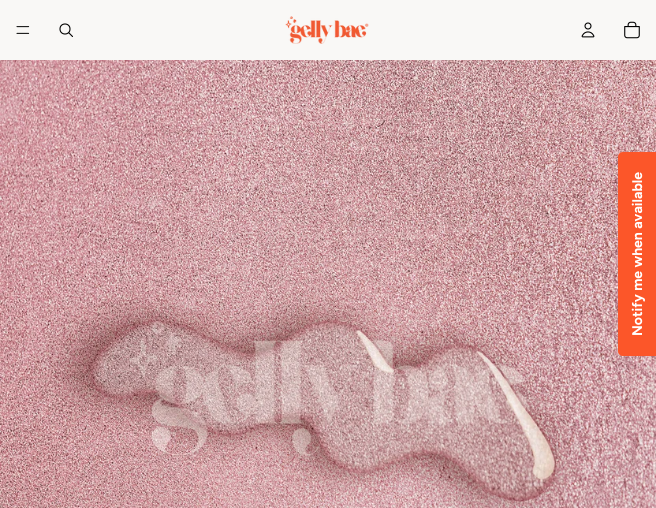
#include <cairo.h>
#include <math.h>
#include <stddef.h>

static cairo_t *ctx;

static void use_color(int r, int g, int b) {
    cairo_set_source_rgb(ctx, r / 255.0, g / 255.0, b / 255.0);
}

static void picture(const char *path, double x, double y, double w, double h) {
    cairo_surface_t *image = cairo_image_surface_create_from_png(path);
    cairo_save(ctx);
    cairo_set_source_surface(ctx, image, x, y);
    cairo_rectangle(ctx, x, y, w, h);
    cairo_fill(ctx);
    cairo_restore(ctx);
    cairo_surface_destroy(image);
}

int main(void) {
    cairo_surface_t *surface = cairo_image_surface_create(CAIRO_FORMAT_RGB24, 656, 508);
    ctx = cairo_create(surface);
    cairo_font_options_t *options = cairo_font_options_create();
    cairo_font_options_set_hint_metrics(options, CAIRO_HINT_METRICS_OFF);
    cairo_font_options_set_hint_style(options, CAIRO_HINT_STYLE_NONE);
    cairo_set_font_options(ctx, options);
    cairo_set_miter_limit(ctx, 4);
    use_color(249, 248, 246);
    cairo_paint(ctx);
    picture("img1.png", 16, 26, 14, 8);
    cairo_arc(ctx, 65, 29, 5, 0, 2 * M_PI);
    use_color(0, 0, 0);
    cairo_set_line_width(ctx, 1.1);
    cairo_stroke(ctx);
    cairo_new_path(ctx);
    cairo_move_to(ctx, 69, 33);
    cairo_line_to(ctx, 72.5, 36.5);
    cairo_set_line_cap(ctx, CAIRO_LINE_CAP_ROUND);
    cairo_set_line_join(ctx, CAIRO_LINE_JOIN_ROUND);
    cairo_stroke(ctx);
    picture("img2.png", 285, 16, 84, 28);
    picture("img3.png", 581, 22, 14, 16);
    picture("img4.png", 624, 21, 16, 18);
    picture("img5.png", 0, 60, 656, 448);
    use_color(252, 86, 41);
    cairo_new_path(ctx);
    cairo_move_to(ctx, 618, 351);
    cairo_line_to(ctx, 618, 157);
    cairo_curve_to(ctx, 618, 154, 620, 152, 623, 152);
    cairo_line_to(ctx, 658, 152);
    cairo_line_to(ctx, 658, 356);
    cairo_line_to(ctx, 623, 356);
    cairo_curve_to(ctx, 620, 356, 618, 354, 618, 351);
    cairo_close_path(ctx);
    cairo_fill(ctx);
    cairo_select_font_face(ctx, "Figtree", CAIRO_FONT_SLANT_NORMAL, CAIRO_FONT_WEIGHT_BOLD);
    cairo_set_font_size(ctx, 14);
    use_color(255, 255, 255);
    cairo_save(ctx);
    cairo_translate(ctx, 642, 336);
    cairo_rotate(ctx, -90 * M_PI / 180);
    cairo_move_to(ctx, 0, 0);
    cairo_show_text(ctx, "Notify me when available");
    cairo_restore(ctx);
    cairo_surface_write_to_png(surface, "result.png");
    cairo_font_options_destroy(options);
    cairo_destroy(ctx);
    cairo_surface_destroy(surface);
    return 0;
}
